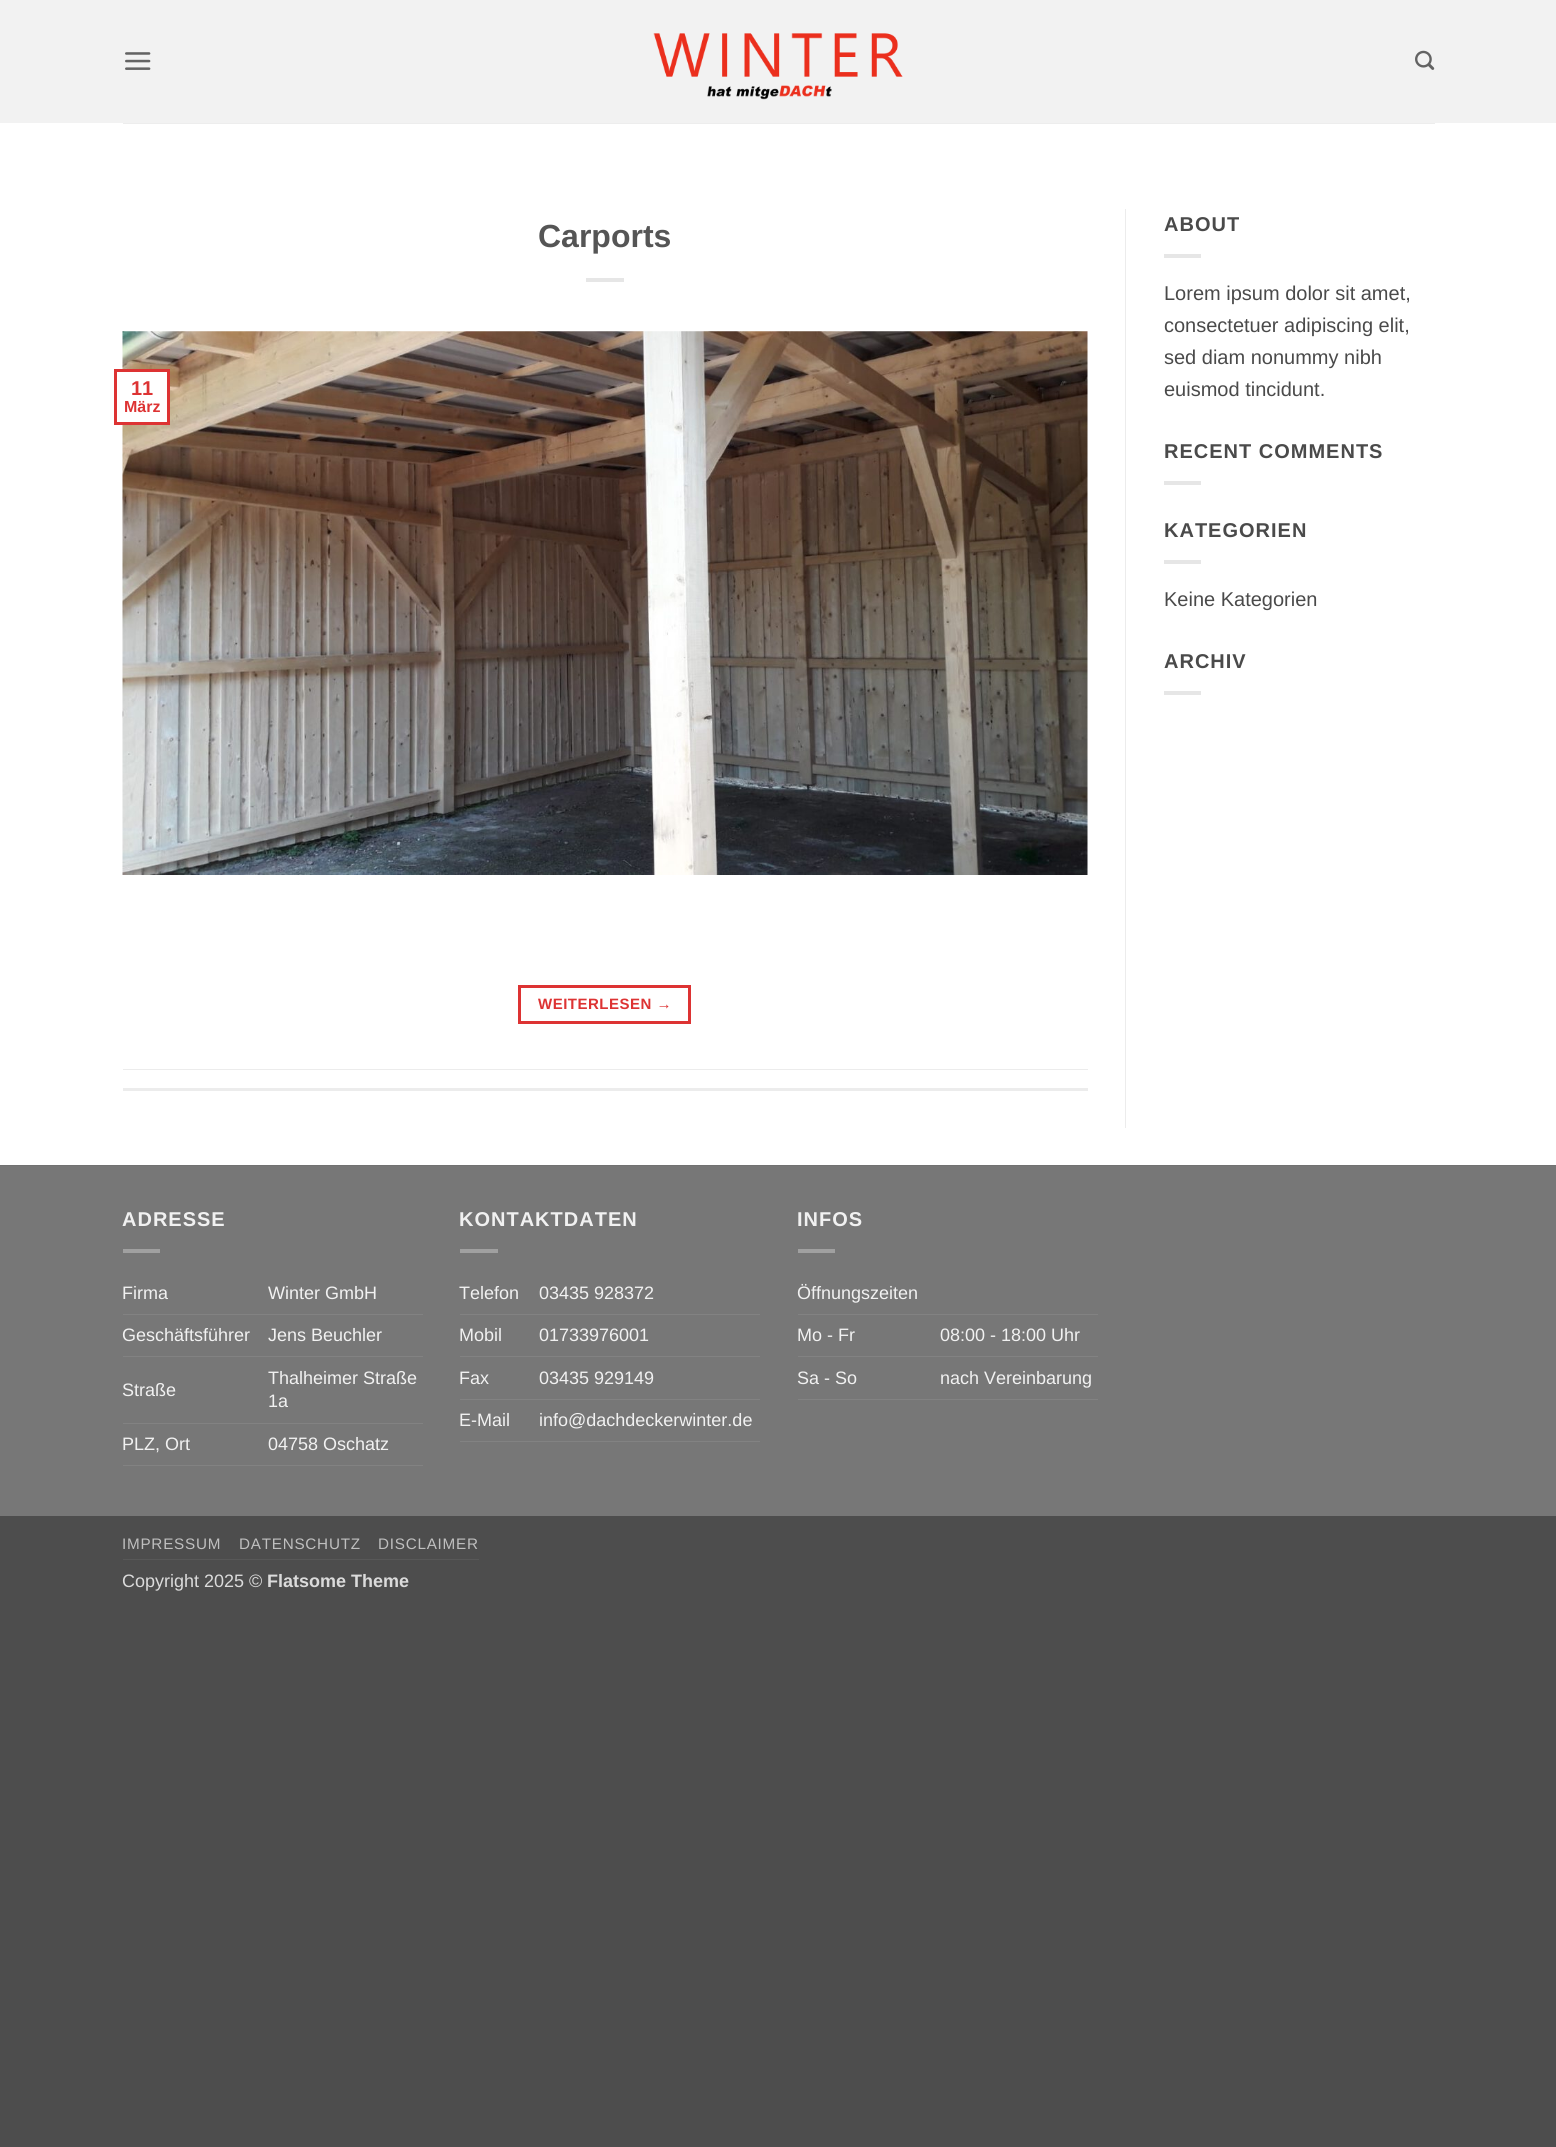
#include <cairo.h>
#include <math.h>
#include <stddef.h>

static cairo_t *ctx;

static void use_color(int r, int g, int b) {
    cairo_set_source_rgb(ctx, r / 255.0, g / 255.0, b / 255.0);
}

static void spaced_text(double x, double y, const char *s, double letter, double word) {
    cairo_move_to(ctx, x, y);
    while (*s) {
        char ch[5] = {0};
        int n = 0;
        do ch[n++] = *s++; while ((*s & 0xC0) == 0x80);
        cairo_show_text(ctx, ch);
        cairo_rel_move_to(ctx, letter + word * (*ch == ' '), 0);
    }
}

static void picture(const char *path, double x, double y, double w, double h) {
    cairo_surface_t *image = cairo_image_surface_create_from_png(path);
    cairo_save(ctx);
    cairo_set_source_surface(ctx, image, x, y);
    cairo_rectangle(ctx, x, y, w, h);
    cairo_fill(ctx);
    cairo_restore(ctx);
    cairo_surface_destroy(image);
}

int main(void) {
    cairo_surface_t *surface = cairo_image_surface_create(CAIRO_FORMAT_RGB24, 1556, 2147);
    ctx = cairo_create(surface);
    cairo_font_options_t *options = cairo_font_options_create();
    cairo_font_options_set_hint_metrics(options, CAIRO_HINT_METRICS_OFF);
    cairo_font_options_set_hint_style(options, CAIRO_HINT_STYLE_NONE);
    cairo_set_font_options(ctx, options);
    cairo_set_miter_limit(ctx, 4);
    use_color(77, 77, 77);
    cairo_paint(ctx);
    use_color(255, 255, 255);
    cairo_rectangle(ctx, 0, 123, 1556, 1042);
    cairo_fill(ctx);
    use_color(242, 242, 242);
    cairo_rectangle(ctx, 0, 0, 1556, 123);
    cairo_fill(ctx);
    picture("img1.png", 125, 52, 26, 18);
    picture("img2.png", 653, 33, 250, 67);
    picture("img3.png", 1415, 50, 20, 20);
    use_color(237, 237, 237);
    cairo_rectangle(ctx, 123, 123, 1312, 1);
    cairo_fill(ctx);
    cairo_select_font_face(ctx, "Liberation Sans", CAIRO_FONT_SLANT_NORMAL, CAIRO_FONT_WEIGHT_BOLD);
    cairo_set_font_size(ctx, 32);
    use_color(85, 85, 85);
    cairo_move_to(ctx, 538, 247);
    cairo_show_text(ctx, "Carports");
    use_color(230, 230, 230);
    cairo_rectangle(ctx, 586, 278, 38, 4);
    cairo_fill(ctx);
    picture("img4.png", 122, 331, 966, 544);
    use_color(255, 255, 255);
    cairo_rectangle(ctx, 122, 372, 45, 50);
    cairo_fill(ctx);
    cairo_rectangle(ctx, 115.5, 370.5, 53, 53);
    use_color(221, 51, 51);
    cairo_set_line_width(ctx, 3);
    cairo_stroke(ctx);
    cairo_set_font_size(ctx, 20);
    cairo_move_to(ctx, 131, 395);
    cairo_show_text(ctx, "11");
    cairo_set_font_size(ctx, 16);
    cairo_move_to(ctx, 124, 412);
    cairo_show_text(ctx, "März");
    cairo_rectangle(ctx, 519.5, 986.5, 170, 36);
    cairo_stroke(ctx);
    cairo_set_font_size(ctx, 15);
    spaced_text(538, 1009, "WEITERLESEN →", 0.5, 0);
    use_color(236, 236, 236);
    cairo_rectangle(ctx, 123, 1069, 965, 1);
    cairo_fill(ctx);
    cairo_rectangle(ctx, 123, 1088, 965, 3);
    cairo_fill(ctx);
    cairo_rectangle(ctx, 1125, 209, 1, 919);
    cairo_fill(ctx);
    cairo_set_font_size(ctx, 20);
    use_color(74, 74, 74);
    spaced_text(1164, 231, "ABOUT", 1, 0);
    use_color(230, 230, 230);
    cairo_rectangle(ctx, 1164, 254, 37, 4);
    cairo_fill(ctx);
    cairo_select_font_face(ctx, "Liberation Sans", CAIRO_FONT_SLANT_NORMAL, CAIRO_FONT_WEIGHT_NORMAL);
    use_color(74, 74, 74);
    cairo_move_to(ctx, 1164, 300);
    cairo_show_text(ctx, "Lorem ipsum dolor sit amet,");
    cairo_move_to(ctx, 1164, 332);
    cairo_show_text(ctx, "consectetuer adipiscing elit,");
    cairo_move_to(ctx, 1164, 364);
    cairo_show_text(ctx, "sed diam nonummy nibh");
    cairo_move_to(ctx, 1164, 396);
    cairo_show_text(ctx, "euismod tincidunt.");
    cairo_select_font_face(ctx, "Liberation Sans", CAIRO_FONT_SLANT_NORMAL, CAIRO_FONT_WEIGHT_BOLD);
    spaced_text(1164, 458, "RECENT COMMENTS", 1, 0);
    use_color(230, 230, 230);
    cairo_rectangle(ctx, 1164, 481, 37, 4);
    cairo_fill(ctx);
    use_color(74, 74, 74);
    spaced_text(1164, 537, "KATEGORIEN", 1, 0);
    use_color(230, 230, 230);
    cairo_rectangle(ctx, 1164, 560, 37, 4);
    cairo_fill(ctx);
    cairo_select_font_face(ctx, "Liberation Sans", CAIRO_FONT_SLANT_NORMAL, CAIRO_FONT_WEIGHT_NORMAL);
    use_color(74, 74, 74);
    cairo_move_to(ctx, 1164, 606);
    cairo_show_text(ctx, "Keine Kategorien");
    cairo_select_font_face(ctx, "Liberation Sans", CAIRO_FONT_SLANT_NORMAL, CAIRO_FONT_WEIGHT_BOLD);
    spaced_text(1164, 668, "ARCHIV", 1, 0);
    use_color(230, 230, 230);
    cairo_rectangle(ctx, 1164, 691, 37, 4);
    cairo_fill(ctx);
    use_color(119, 119, 119);
    cairo_rectangle(ctx, 0, 1166, 1556, 350);
    cairo_fill(ctx);
    use_color(113, 113, 113);
    cairo_rectangle(ctx, 0, 1165, 1556, 1);
    cairo_fill(ctx);
    use_color(241, 241, 241);
    spaced_text(122, 1226, "ADRESSE", 1, 0);
    use_color(160, 160, 160);
    cairo_rectangle(ctx, 123, 1249, 37, 4);
    cairo_fill(ctx);
    use_color(130, 130, 130);
    cairo_rectangle(ctx, 123, 1314, 300, 1);
    cairo_fill(ctx);
    cairo_select_font_face(ctx, "Liberation Sans", CAIRO_FONT_SLANT_NORMAL, CAIRO_FONT_WEIGHT_NORMAL);
    cairo_set_font_size(ctx, 18);
    use_color(241, 241, 241);
    cairo_move_to(ctx, 122, 1299);
    cairo_show_text(ctx, "Firma");
    cairo_move_to(ctx, 268, 1299);
    cairo_show_text(ctx, "Winter GmbH");
    use_color(130, 130, 130);
    cairo_rectangle(ctx, 123, 1356, 300, 1);
    cairo_fill(ctx);
    use_color(241, 241, 241);
    cairo_move_to(ctx, 122, 1341);
    cairo_show_text(ctx, "Geschäftsführer");
    cairo_move_to(ctx, 268, 1341);
    cairo_show_text(ctx, "Jens Beuchler");
    use_color(130, 130, 130);
    cairo_rectangle(ctx, 123, 1423, 300, 1);
    cairo_fill(ctx);
    use_color(241, 241, 241);
    cairo_move_to(ctx, 122, 1396);
    cairo_show_text(ctx, "Straße");
    cairo_move_to(ctx, 268, 1384);
    cairo_show_text(ctx, "Thalheimer Straße");
    cairo_move_to(ctx, 268, 1407);
    cairo_show_text(ctx, "1a");
    use_color(130, 130, 130);
    cairo_rectangle(ctx, 123, 1465, 300, 1);
    cairo_fill(ctx);
    use_color(241, 241, 241);
    cairo_move_to(ctx, 122, 1450);
    cairo_show_text(ctx, "PLZ, Ort");
    cairo_move_to(ctx, 268, 1450);
    cairo_show_text(ctx, "04758 Oschatz");
    cairo_select_font_face(ctx, "Liberation Sans", CAIRO_FONT_SLANT_NORMAL, CAIRO_FONT_WEIGHT_BOLD);
    cairo_set_font_size(ctx, 20);
    spaced_text(459, 1226, "KONTAKTDATEN", 1, 0);
    use_color(160, 160, 160);
    cairo_rectangle(ctx, 460, 1249, 38, 4);
    cairo_fill(ctx);
    use_color(130, 130, 130);
    cairo_rectangle(ctx, 460, 1314, 300, 1);
    cairo_fill(ctx);
    cairo_select_font_face(ctx, "Liberation Sans", CAIRO_FONT_SLANT_NORMAL, CAIRO_FONT_WEIGHT_NORMAL);
    cairo_set_font_size(ctx, 18);
    use_color(241, 241, 241);
    cairo_move_to(ctx, 459, 1299);
    cairo_show_text(ctx, "Telefon");
    cairo_move_to(ctx, 539, 1299);
    cairo_show_text(ctx, "03435 928372");
    use_color(130, 130, 130);
    cairo_rectangle(ctx, 460, 1356, 300, 1);
    cairo_fill(ctx);
    use_color(241, 241, 241);
    cairo_move_to(ctx, 459, 1341);
    cairo_show_text(ctx, "Mobil");
    cairo_move_to(ctx, 539, 1341);
    cairo_show_text(ctx, "01733976001");
    use_color(130, 130, 130);
    cairo_rectangle(ctx, 460, 1399, 300, 1);
    cairo_fill(ctx);
    use_color(241, 241, 241);
    cairo_move_to(ctx, 459, 1384);
    cairo_show_text(ctx, "Fax");
    cairo_move_to(ctx, 539, 1384);
    cairo_show_text(ctx, "03435 929149");
    use_color(130, 130, 130);
    cairo_rectangle(ctx, 460, 1441, 300, 1);
    cairo_fill(ctx);
    use_color(241, 241, 241);
    cairo_move_to(ctx, 459, 1426);
    cairo_show_text(ctx, "E-Mail");
    cairo_move_to(ctx, 539, 1426);
    cairo_show_text(ctx, "info@dachdeckerwinter.de");
    cairo_select_font_face(ctx, "Liberation Sans", CAIRO_FONT_SLANT_NORMAL, CAIRO_FONT_WEIGHT_BOLD);
    cairo_set_font_size(ctx, 20);
    spaced_text(797, 1226, "INFOS", 1, 0);
    use_color(160, 160, 160);
    cairo_rectangle(ctx, 798, 1249, 37, 4);
    cairo_fill(ctx);
    use_color(130, 130, 130);
    cairo_rectangle(ctx, 798, 1314, 300, 1);
    cairo_fill(ctx);
    cairo_select_font_face(ctx, "Liberation Sans", CAIRO_FONT_SLANT_NORMAL, CAIRO_FONT_WEIGHT_NORMAL);
    cairo_set_font_size(ctx, 18);
    use_color(241, 241, 241);
    cairo_move_to(ctx, 797, 1299);
    cairo_show_text(ctx, "Öffnungszeiten");
    use_color(130, 130, 130);
    cairo_rectangle(ctx, 798, 1356, 300, 1);
    cairo_fill(ctx);
    use_color(241, 241, 241);
    cairo_move_to(ctx, 797, 1341);
    cairo_show_text(ctx, "Mo - Fr");
    cairo_move_to(ctx, 940, 1341);
    cairo_show_text(ctx, "08:00 - 18:00 Uhr");
    use_color(130, 130, 130);
    cairo_rectangle(ctx, 798, 1399, 300, 1);
    cairo_fill(ctx);
    use_color(241, 241, 241);
    cairo_move_to(ctx, 797, 1384);
    cairo_show_text(ctx, "Sa - So");
    cairo_move_to(ctx, 940, 1384);
    cairo_show_text(ctx, "nach Vereinbarung");
    use_color(88, 88, 88);
    cairo_rectangle(ctx, 123, 1559, 356, 1);
    cairo_fill(ctx);
    cairo_set_font_size(ctx, 15.25);
    use_color(191, 191, 191);
    spaced_text(122, 1549, "IMPRESSUM", 0.75, 0);
    spaced_text(239, 1549, "DATENSCHUTZ", 0.75, 0);
    spaced_text(378, 1549, "DISCLAIMER", 0.75, 0);
    cairo_set_font_size(ctx, 18);
    use_color(219, 219, 219);
    cairo_move_to(ctx, 122, 1587);
    cairo_show_text(ctx, "Copyright 2025 ©");
    cairo_select_font_face(ctx, "Liberation Sans", CAIRO_FONT_SLANT_NORMAL, CAIRO_FONT_WEIGHT_BOLD);
    cairo_move_to(ctx, 267, 1587);
    cairo_show_text(ctx, "Flatsome Theme");
    cairo_surface_write_to_png(surface, "result.png");
    cairo_font_options_destroy(options);
    cairo_destroy(ctx);
    cairo_surface_destroy(surface);
    return 0;
}
